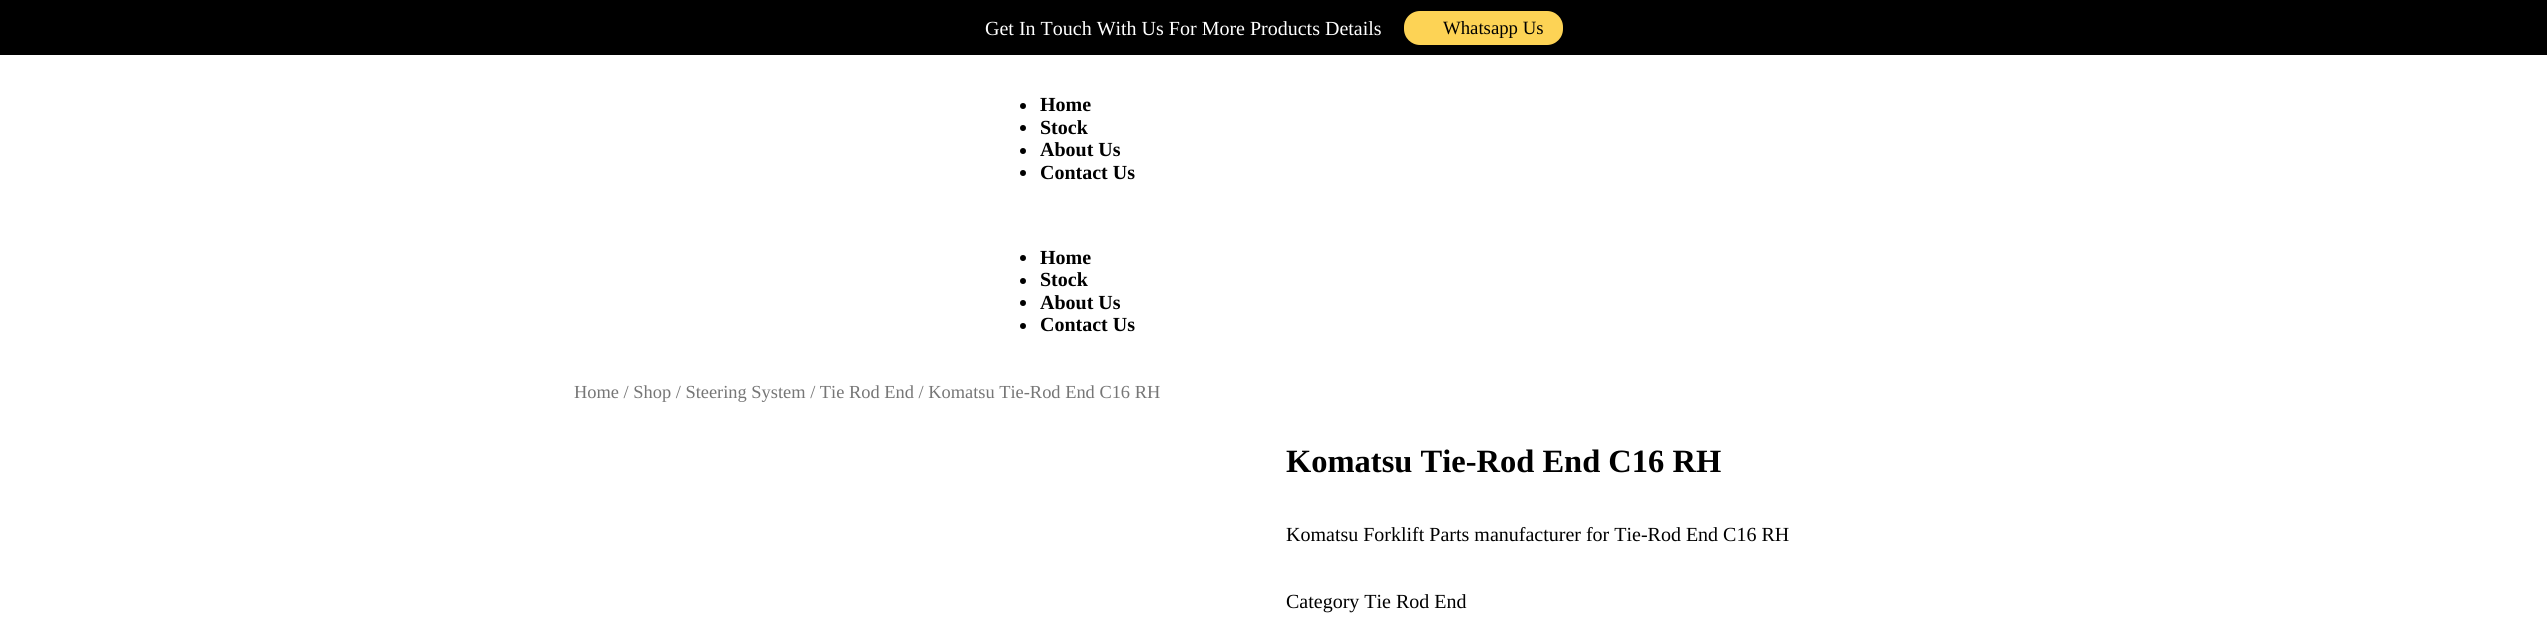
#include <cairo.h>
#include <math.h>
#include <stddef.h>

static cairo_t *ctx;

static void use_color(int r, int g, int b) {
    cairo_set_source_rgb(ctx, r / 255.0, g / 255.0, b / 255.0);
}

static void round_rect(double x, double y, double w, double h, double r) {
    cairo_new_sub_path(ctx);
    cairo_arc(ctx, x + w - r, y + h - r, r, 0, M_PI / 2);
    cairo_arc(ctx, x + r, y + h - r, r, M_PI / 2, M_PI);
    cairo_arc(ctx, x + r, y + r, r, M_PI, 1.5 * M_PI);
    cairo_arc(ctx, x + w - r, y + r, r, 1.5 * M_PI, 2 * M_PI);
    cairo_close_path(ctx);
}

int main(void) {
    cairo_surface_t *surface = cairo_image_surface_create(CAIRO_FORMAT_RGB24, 2547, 618);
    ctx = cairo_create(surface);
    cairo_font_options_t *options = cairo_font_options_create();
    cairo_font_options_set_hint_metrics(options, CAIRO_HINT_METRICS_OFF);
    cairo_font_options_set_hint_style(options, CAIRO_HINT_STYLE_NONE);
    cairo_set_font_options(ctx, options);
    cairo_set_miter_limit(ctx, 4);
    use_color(255, 255, 255);
    cairo_paint(ctx);
    use_color(0, 0, 0);
    cairo_rectangle(ctx, 0, 0, 2547, 55);
    cairo_fill(ctx);
    cairo_select_font_face(ctx, "Liberation Serif", CAIRO_FONT_SLANT_NORMAL, CAIRO_FONT_WEIGHT_NORMAL);
    cairo_set_font_size(ctx, 20);
    use_color(255, 255, 255);
    cairo_move_to(ctx, 985, 35);
    cairo_show_text(ctx, "Get In Touch With Us For More Products Details");
    use_color(253, 211, 85);
    round_rect(1404, 11, 159, 34, 16);
    cairo_fill(ctx);
    cairo_set_font_size(ctx, 18.75);
    use_color(0, 0, 0);
    cairo_move_to(ctx, 1443, 34);
    cairo_show_text(ctx, "Whatsapp Us");
    cairo_new_path(ctx);
    cairo_arc(ctx, 1023, 106, 3, 0, 2 * M_PI);
    cairo_fill(ctx);
    cairo_select_font_face(ctx, "Liberation Serif", CAIRO_FONT_SLANT_NORMAL, CAIRO_FONT_WEIGHT_BOLD);
    cairo_set_font_size(ctx, 20);
    cairo_move_to(ctx, 1040, 111);
    cairo_show_text(ctx, "Home");
    cairo_new_path(ctx);
    cairo_arc(ctx, 1023, 128, 3, 0, 2 * M_PI);
    cairo_fill(ctx);
    cairo_move_to(ctx, 1040, 134);
    cairo_show_text(ctx, "Stock");
    cairo_new_path(ctx);
    cairo_arc(ctx, 1023, 151, 3, 0, 2 * M_PI);
    cairo_fill(ctx);
    cairo_move_to(ctx, 1040, 156);
    cairo_show_text(ctx, "About Us");
    cairo_new_path(ctx);
    cairo_arc(ctx, 1023, 173, 3, 0, 2 * M_PI);
    cairo_fill(ctx);
    cairo_move_to(ctx, 1040, 179);
    cairo_show_text(ctx, "Contact Us");
    cairo_new_path(ctx);
    cairo_arc(ctx, 1023, 258, 3, 0, 2 * M_PI);
    cairo_fill(ctx);
    cairo_move_to(ctx, 1040, 264);
    cairo_show_text(ctx, "Home");
    cairo_new_path(ctx);
    cairo_arc(ctx, 1023, 281, 3, 0, 2 * M_PI);
    cairo_fill(ctx);
    cairo_move_to(ctx, 1040, 286);
    cairo_show_text(ctx, "Stock");
    cairo_new_path(ctx);
    cairo_arc(ctx, 1023, 303, 3, 0, 2 * M_PI);
    cairo_fill(ctx);
    cairo_move_to(ctx, 1040, 309);
    cairo_show_text(ctx, "About Us");
    cairo_new_path(ctx);
    cairo_arc(ctx, 1023, 326, 3, 0, 2 * M_PI);
    cairo_fill(ctx);
    cairo_move_to(ctx, 1040, 331);
    cairo_show_text(ctx, "Contact Us");
    cairo_select_font_face(ctx, "Liberation Serif", CAIRO_FONT_SLANT_NORMAL, CAIRO_FONT_WEIGHT_NORMAL);
    cairo_set_font_size(ctx, 18.4);
    use_color(118, 118, 118);
    cairo_move_to(ctx, 574, 398);
    cairo_show_text(ctx, "Home / Shop / Steering System / Tie Rod End / Komatsu Tie-Rod End C16 RH");
    cairo_select_font_face(ctx, "Liberation Serif", CAIRO_FONT_SLANT_NORMAL, CAIRO_FONT_WEIGHT_BOLD);
    cairo_set_font_size(ctx, 32.5);
    use_color(0, 0, 0);
    cairo_move_to(ctx, 1286, 472);
    cairo_show_text(ctx, "Komatsu Tie-Rod End C16 RH");
    cairo_select_font_face(ctx, "Liberation Serif", CAIRO_FONT_SLANT_NORMAL, CAIRO_FONT_WEIGHT_NORMAL);
    cairo_set_font_size(ctx, 20);
    cairo_move_to(ctx, 1286, 541);
    cairo_show_text(ctx, "Komatsu Forklift Parts manufacturer for Tie-Rod End C16 RH");
    cairo_move_to(ctx, 1286, 608);
    cairo_show_text(ctx, "Category Tie Rod End");
    cairo_surface_write_to_png(surface, "result.png");
    cairo_font_options_destroy(options);
    cairo_destroy(ctx);
    cairo_surface_destroy(surface);
    return 0;
}
